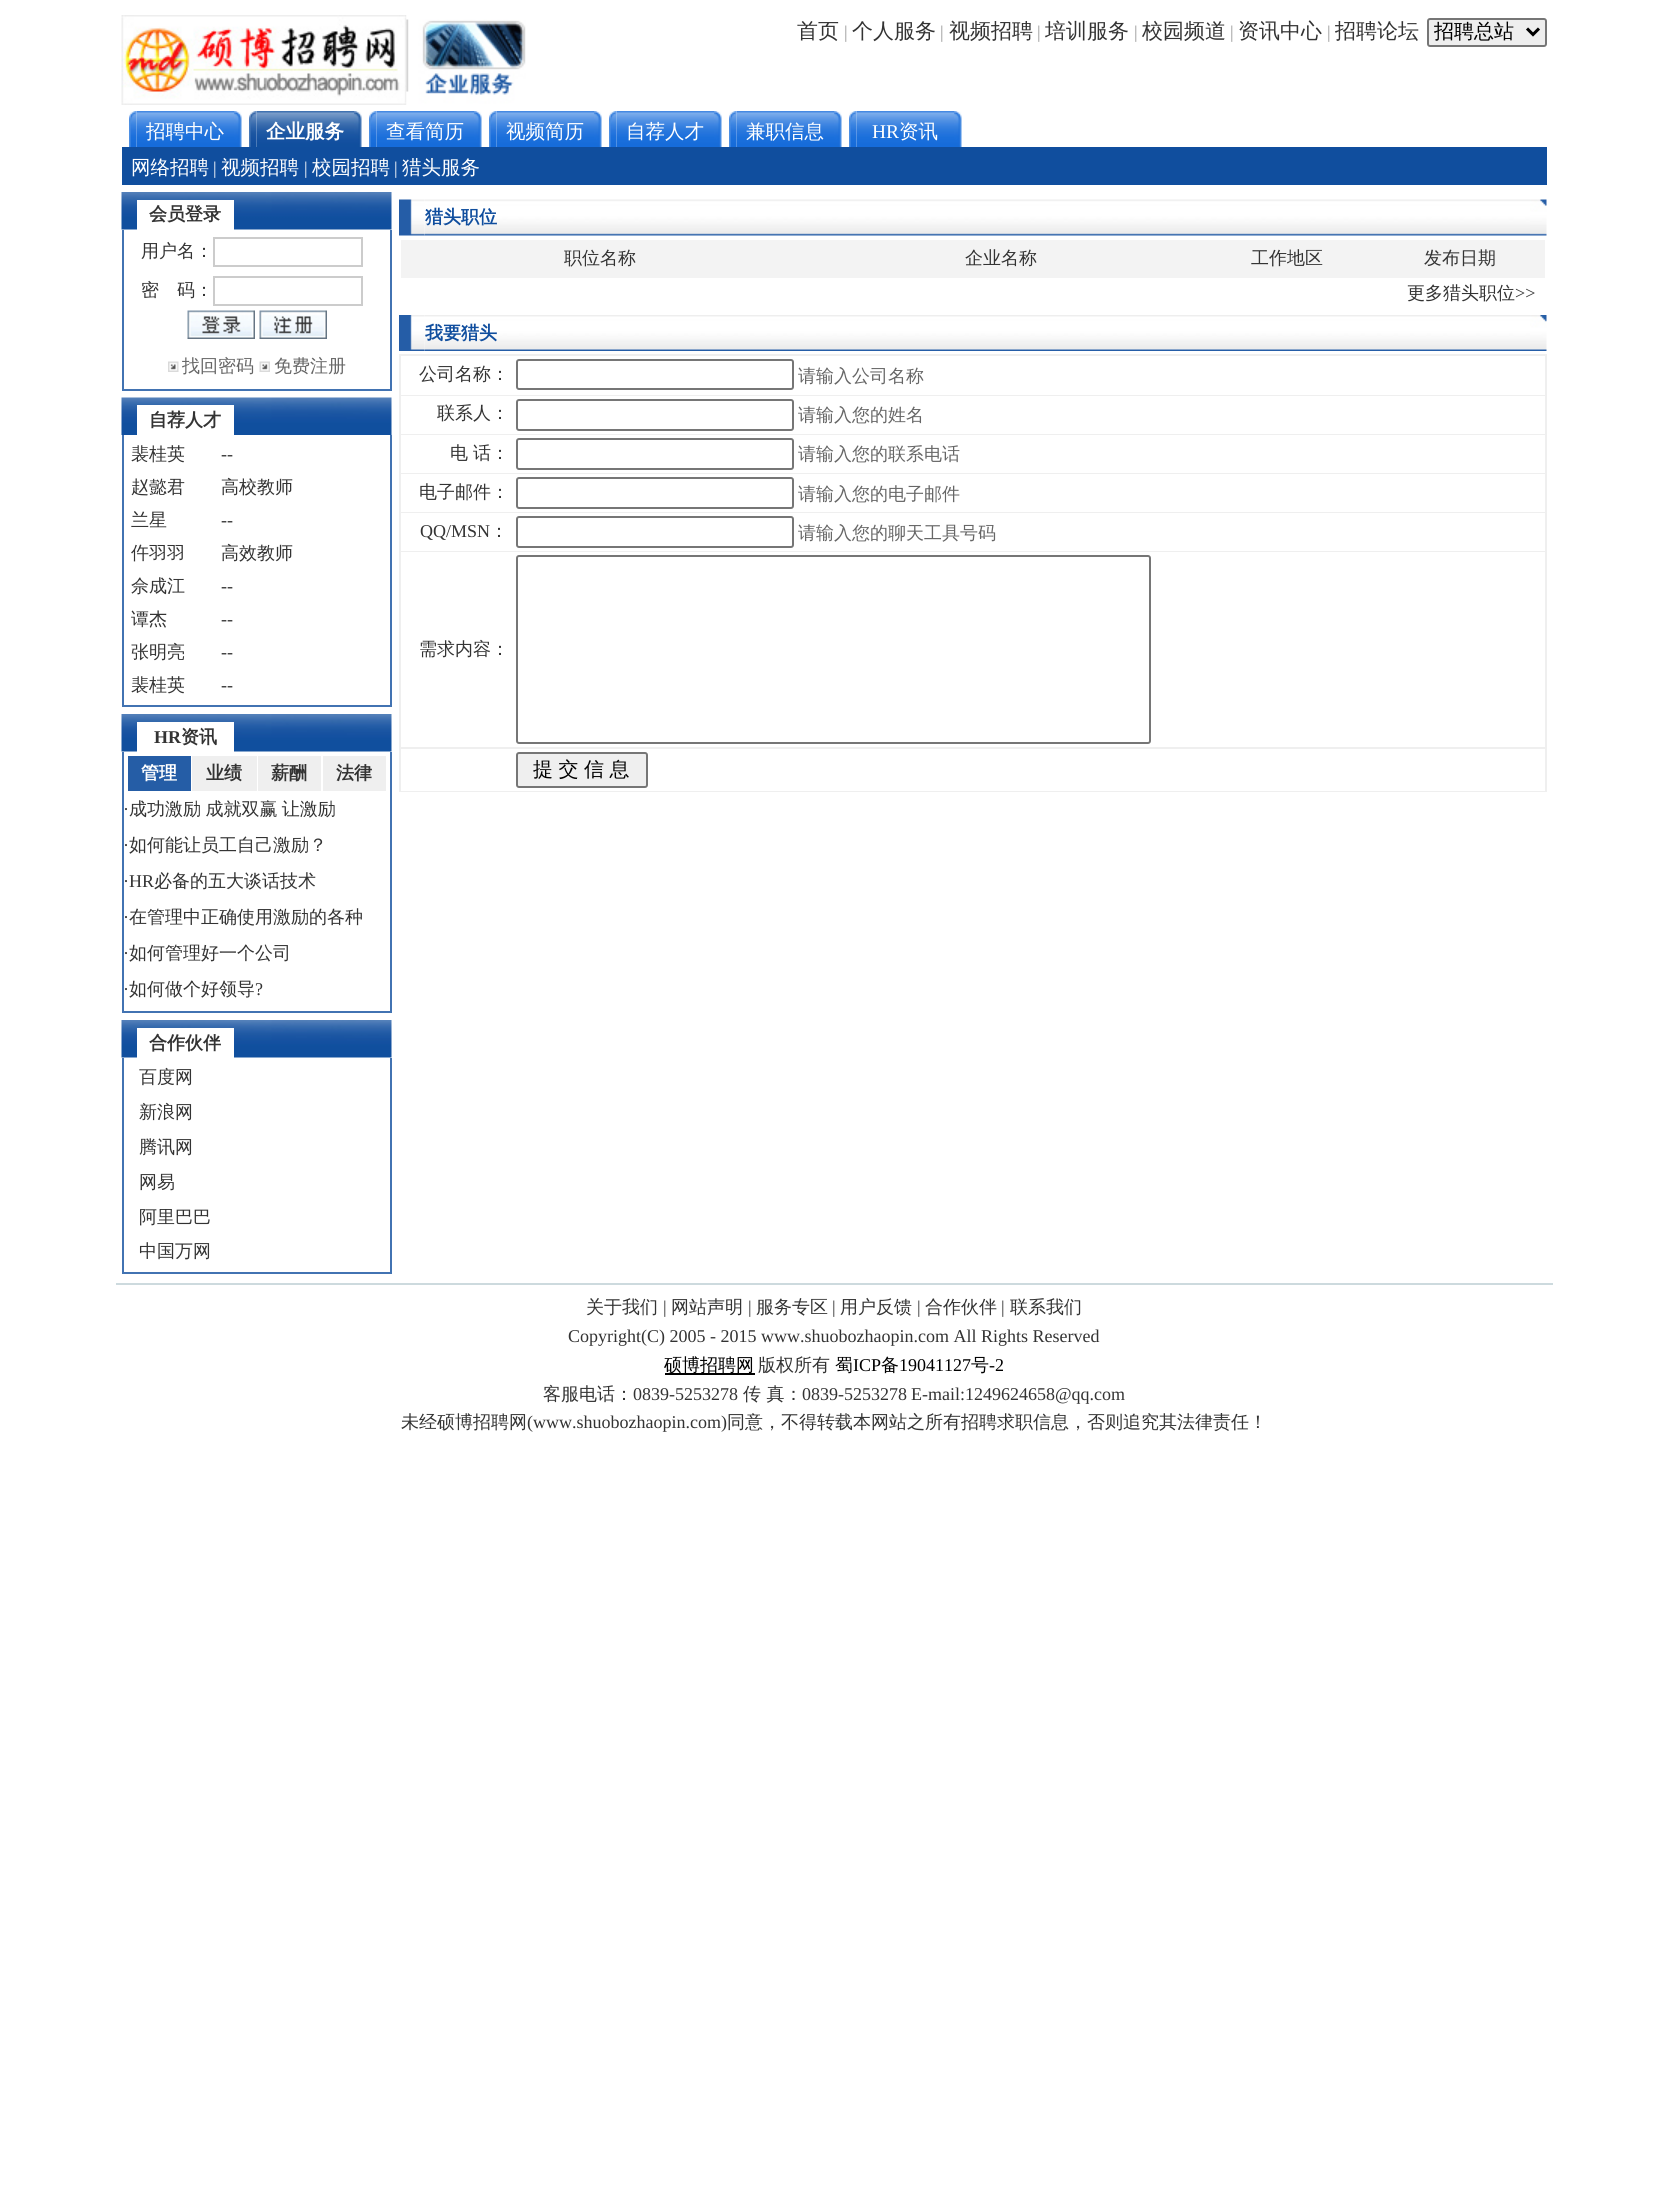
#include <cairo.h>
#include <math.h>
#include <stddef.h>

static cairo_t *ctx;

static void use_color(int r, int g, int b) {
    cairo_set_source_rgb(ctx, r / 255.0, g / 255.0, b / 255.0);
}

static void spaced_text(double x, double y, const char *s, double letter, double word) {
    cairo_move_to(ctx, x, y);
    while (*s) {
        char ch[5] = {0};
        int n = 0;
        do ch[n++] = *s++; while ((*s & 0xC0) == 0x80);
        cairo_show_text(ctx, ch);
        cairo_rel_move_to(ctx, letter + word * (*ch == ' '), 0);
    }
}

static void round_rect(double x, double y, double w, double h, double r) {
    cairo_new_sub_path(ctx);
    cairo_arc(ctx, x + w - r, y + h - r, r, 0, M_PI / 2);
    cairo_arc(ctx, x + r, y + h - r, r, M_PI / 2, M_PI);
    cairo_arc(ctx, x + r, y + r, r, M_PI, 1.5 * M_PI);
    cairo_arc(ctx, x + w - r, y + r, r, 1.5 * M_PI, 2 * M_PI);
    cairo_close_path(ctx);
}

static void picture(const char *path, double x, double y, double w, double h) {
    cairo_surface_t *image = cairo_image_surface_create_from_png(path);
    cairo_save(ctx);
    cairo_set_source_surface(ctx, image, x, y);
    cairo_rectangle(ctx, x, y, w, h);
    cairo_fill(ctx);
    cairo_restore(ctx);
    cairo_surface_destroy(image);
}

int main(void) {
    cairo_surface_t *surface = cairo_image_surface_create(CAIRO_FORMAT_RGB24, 1667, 2212);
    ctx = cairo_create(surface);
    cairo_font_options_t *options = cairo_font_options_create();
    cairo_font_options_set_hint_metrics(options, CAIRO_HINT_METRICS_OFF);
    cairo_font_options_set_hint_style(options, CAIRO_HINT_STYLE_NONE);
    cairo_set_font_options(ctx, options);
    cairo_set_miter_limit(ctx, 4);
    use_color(255, 255, 255);
    cairo_paint(ctx);
    picture("img1.png", 121, 15, 286, 90);
    picture("img2.png", 406, 15, 120, 90);
    cairo_select_font_face(ctx, "WenQuanYi Zen Hei Medium", CAIRO_FONT_SLANT_NORMAL, CAIRO_FONT_WEIGHT_NORMAL);
    cairo_set_font_size(ctx, 21);
    use_color(51, 51, 51);
    cairo_move_to(ctx, 797, 38);
    cairo_show_text(ctx, "首页");
    cairo_select_font_face(ctx, "Liberation Serif", CAIRO_FONT_SLANT_NORMAL, CAIRO_FONT_WEIGHT_NORMAL);
    cairo_set_font_size(ctx, 18);
    use_color(153, 153, 153);
    cairo_move_to(ctx, 844, 38);
    cairo_show_text(ctx, "|");
    cairo_select_font_face(ctx, "WenQuanYi Zen Hei Medium", CAIRO_FONT_SLANT_NORMAL, CAIRO_FONT_WEIGHT_NORMAL);
    cairo_set_font_size(ctx, 21);
    use_color(51, 51, 51);
    cairo_move_to(ctx, 852, 38);
    cairo_show_text(ctx, "个人服务");
    cairo_select_font_face(ctx, "Liberation Serif", CAIRO_FONT_SLANT_NORMAL, CAIRO_FONT_WEIGHT_NORMAL);
    cairo_set_font_size(ctx, 18);
    use_color(153, 153, 153);
    cairo_move_to(ctx, 940, 38);
    cairo_show_text(ctx, "|");
    cairo_select_font_face(ctx, "WenQuanYi Zen Hei Medium", CAIRO_FONT_SLANT_NORMAL, CAIRO_FONT_WEIGHT_NORMAL);
    cairo_set_font_size(ctx, 21);
    use_color(51, 51, 51);
    cairo_move_to(ctx, 949, 38);
    cairo_show_text(ctx, "视频招聘");
    cairo_select_font_face(ctx, "Liberation Serif", CAIRO_FONT_SLANT_NORMAL, CAIRO_FONT_WEIGHT_NORMAL);
    cairo_set_font_size(ctx, 18);
    use_color(153, 153, 153);
    cairo_move_to(ctx, 1037, 38);
    cairo_show_text(ctx, "|");
    cairo_select_font_face(ctx, "WenQuanYi Zen Hei Medium", CAIRO_FONT_SLANT_NORMAL, CAIRO_FONT_WEIGHT_NORMAL);
    cairo_set_font_size(ctx, 21);
    use_color(51, 51, 51);
    cairo_move_to(ctx, 1045, 38);
    cairo_show_text(ctx, "培训服务");
    cairo_select_font_face(ctx, "Liberation Serif", CAIRO_FONT_SLANT_NORMAL, CAIRO_FONT_WEIGHT_NORMAL);
    cairo_set_font_size(ctx, 18);
    use_color(153, 153, 153);
    cairo_move_to(ctx, 1134, 38);
    cairo_show_text(ctx, "|");
    cairo_select_font_face(ctx, "WenQuanYi Zen Hei Medium", CAIRO_FONT_SLANT_NORMAL, CAIRO_FONT_WEIGHT_NORMAL);
    cairo_set_font_size(ctx, 21);
    use_color(51, 51, 51);
    cairo_move_to(ctx, 1142, 38);
    cairo_show_text(ctx, "校园频道");
    cairo_select_font_face(ctx, "Liberation Serif", CAIRO_FONT_SLANT_NORMAL, CAIRO_FONT_WEIGHT_NORMAL);
    cairo_set_font_size(ctx, 18);
    use_color(153, 153, 153);
    cairo_move_to(ctx, 1230, 38);
    cairo_show_text(ctx, "|");
    cairo_select_font_face(ctx, "WenQuanYi Zen Hei Medium", CAIRO_FONT_SLANT_NORMAL, CAIRO_FONT_WEIGHT_NORMAL);
    cairo_set_font_size(ctx, 21);
    use_color(51, 51, 51);
    cairo_move_to(ctx, 1238, 38);
    cairo_show_text(ctx, "资讯中心");
    cairo_select_font_face(ctx, "Liberation Serif", CAIRO_FONT_SLANT_NORMAL, CAIRO_FONT_WEIGHT_NORMAL);
    cairo_set_font_size(ctx, 18);
    use_color(153, 153, 153);
    cairo_move_to(ctx, 1327, 38);
    cairo_show_text(ctx, "|");
    cairo_select_font_face(ctx, "WenQuanYi Zen Hei Medium", CAIRO_FONT_SLANT_NORMAL, CAIRO_FONT_WEIGHT_NORMAL);
    cairo_set_font_size(ctx, 21);
    use_color(51, 51, 51);
    cairo_move_to(ctx, 1335, 38);
    cairo_show_text(ctx, "招聘论坛");
    use_color(238, 238, 238);
    round_rect(1428, 19, 118, 27, 2);
    cairo_fill_preserve(ctx);
    use_color(118, 118, 118);
    cairo_stroke(ctx);
    cairo_new_path(ctx);
    cairo_move_to(ctx, 1527, 28.5);
    cairo_line_to(ctx, 1533, 34.5);
    cairo_line_to(ctx, 1539, 28.5);
    use_color(0, 0, 0);
    cairo_set_line_width(ctx, 3);
    cairo_stroke(ctx);
    cairo_set_font_size(ctx, 20);
    cairo_move_to(ctx, 1434, 38);
    cairo_show_text(ctx, "招聘总站");
    picture("img4.png", 136, 111, 98, 36);
    picture("img3.png", 129, 111, 8, 36);
    cairo_set_font_size(ctx, 19.5);
    use_color(255, 255, 255);
    cairo_move_to(ctx, 146, 138);
    cairo_show_text(ctx, "招聘中心");
    picture("img5.png", 234, 111, 8, 36);
    picture("img7.png", 256, 111, 98, 36);
    picture("img6.png", 249, 111, 8, 36);
    cairo_select_font_face(ctx, "WenQuanYi Zen Hei", CAIRO_FONT_SLANT_NORMAL, CAIRO_FONT_WEIGHT_BOLD);
    cairo_move_to(ctx, 266, 138);
    cairo_show_text(ctx, "企业服务");
    picture("img8.png", 354, 111, 8, 36);
    picture("img4.png", 376, 111, 98, 36);
    picture("img9.png", 369, 111, 8, 36);
    cairo_select_font_face(ctx, "WenQuanYi Zen Hei Medium", CAIRO_FONT_SLANT_NORMAL, CAIRO_FONT_WEIGHT_NORMAL);
    cairo_move_to(ctx, 386, 138);
    cairo_show_text(ctx, "查看简历");
    picture("img10.png", 474, 111, 8, 36);
    picture("img4.png", 496, 111, 98, 36);
    picture("img9.png", 489, 111, 8, 36);
    cairo_move_to(ctx, 506, 138);
    cairo_show_text(ctx, "视频简历");
    picture("img10.png", 594, 111, 8, 36);
    picture("img4.png", 616, 111, 98, 36);
    picture("img3.png", 609, 111, 8, 36);
    cairo_move_to(ctx, 626, 138);
    cairo_show_text(ctx, "自荐人才");
    picture("img10.png", 714, 111, 8, 36);
    picture("img4.png", 736, 111, 98, 36);
    picture("img9.png", 729, 111, 8, 36);
    cairo_move_to(ctx, 746, 138);
    cairo_show_text(ctx, "兼职信息");
    picture("img5.png", 834, 111, 8, 36);
    picture("img4.png", 856, 111, 98, 36);
    picture("img3.png", 849, 111, 8, 36);
    cairo_select_font_face(ctx, "Liberation Serif", CAIRO_FONT_SLANT_NORMAL, CAIRO_FONT_WEIGHT_NORMAL);
    cairo_move_to(ctx, 872, 138);
    cairo_show_text(ctx, "HR");
    cairo_select_font_face(ctx, "WenQuanYi Zen Hei Medium", CAIRO_FONT_SLANT_NORMAL, CAIRO_FONT_WEIGHT_NORMAL);
    cairo_move_to(ctx, 899, 138);
    cairo_show_text(ctx, "资讯");
    picture("img5.png", 954, 111, 8, 36);
    use_color(16, 78, 158);
    cairo_rectangle(ctx, 122, 147, 1425, 38);
    cairo_fill(ctx);
    use_color(255, 255, 255);
    cairo_move_to(ctx, 131, 174);
    cairo_show_text(ctx, "网络招聘");
    cairo_select_font_face(ctx, "Liberation Serif", CAIRO_FONT_SLANT_NORMAL, CAIRO_FONT_WEIGHT_NORMAL);
    cairo_set_font_size(ctx, 18);
    cairo_move_to(ctx, 213, 174);
    cairo_show_text(ctx, "|");
    cairo_select_font_face(ctx, "WenQuanYi Zen Hei Medium", CAIRO_FONT_SLANT_NORMAL, CAIRO_FONT_WEIGHT_NORMAL);
    cairo_set_font_size(ctx, 19.5);
    cairo_move_to(ctx, 221, 174);
    cairo_show_text(ctx, "视频招聘");
    cairo_select_font_face(ctx, "Liberation Serif", CAIRO_FONT_SLANT_NORMAL, CAIRO_FONT_WEIGHT_NORMAL);
    cairo_set_font_size(ctx, 18);
    cairo_move_to(ctx, 304, 174);
    cairo_show_text(ctx, "|");
    cairo_select_font_face(ctx, "WenQuanYi Zen Hei Medium", CAIRO_FONT_SLANT_NORMAL, CAIRO_FONT_WEIGHT_NORMAL);
    cairo_set_font_size(ctx, 19.5);
    cairo_move_to(ctx, 312, 174);
    cairo_show_text(ctx, "校园招聘");
    cairo_select_font_face(ctx, "Liberation Serif", CAIRO_FONT_SLANT_NORMAL, CAIRO_FONT_WEIGHT_NORMAL);
    cairo_set_font_size(ctx, 18);
    cairo_move_to(ctx, 394, 174);
    cairo_show_text(ctx, "|");
    cairo_select_font_face(ctx, "WenQuanYi Zen Hei Medium", CAIRO_FONT_SLANT_NORMAL, CAIRO_FONT_WEIGHT_NORMAL);
    cairo_set_font_size(ctx, 19.5);
    cairo_move_to(ctx, 402, 174);
    cairo_show_text(ctx, "猎头服务");
    picture("img11.png", 121, 192, 271, 38);
    cairo_rectangle(ctx, 137, 200, 97, 30);
    cairo_fill(ctx);
    cairo_select_font_face(ctx, "WenQuanYi Zen Hei", CAIRO_FONT_SLANT_NORMAL, CAIRO_FONT_WEIGHT_BOLD);
    cairo_set_font_size(ctx, 18);
    use_color(51, 51, 51);
    cairo_move_to(ctx, 149, 220);
    cairo_show_text(ctx, "会员登录");
    use_color(66, 115, 178);
    cairo_rectangle(ctx, 390, 230, 2, 160);
    cairo_fill(ctx);
    cairo_rectangle(ctx, 122, 389, 270, 2);
    cairo_fill(ctx);
    cairo_rectangle(ctx, 122, 230, 2, 160);
    cairo_fill(ctx);
    cairo_select_font_face(ctx, "WenQuanYi Zen Hei Medium", CAIRO_FONT_SLANT_NORMAL, CAIRO_FONT_WEIGHT_NORMAL);
    use_color(51, 51, 51);
    cairo_move_to(ctx, 141, 257);
    cairo_show_text(ctx, "用户名：");
    cairo_rectangle(ctx, 214, 238, 148, 28);
    use_color(204, 204, 204);
    cairo_set_line_width(ctx, 2);
    cairo_stroke(ctx);
    use_color(51, 51, 51);
    cairo_move_to(ctx, 141, 296);
    cairo_show_text(ctx, "密　码：");
    cairo_rectangle(ctx, 214, 277, 148, 28);
    use_color(204, 204, 204);
    cairo_stroke(ctx);
    picture("img12.png", 187, 310, 68, 29);
    picture("img13.png", 259, 310, 68, 29);
    picture("img14.png", 168, 361, 11, 11);
    use_color(102, 102, 102);
    cairo_move_to(ctx, 182, 372);
    cairo_show_text(ctx, "找回密码");
    picture("img15.png", 259, 361, 11, 11);
    cairo_move_to(ctx, 274, 372);
    cairo_show_text(ctx, "免费注册");
    picture("img16.png", 121, 397, 271, 38);
    use_color(255, 255, 255);
    cairo_rectangle(ctx, 137, 405, 97, 30);
    cairo_fill(ctx);
    cairo_select_font_face(ctx, "WenQuanYi Zen Hei", CAIRO_FONT_SLANT_NORMAL, CAIRO_FONT_WEIGHT_BOLD);
    use_color(51, 51, 51);
    cairo_move_to(ctx, 149, 426);
    cairo_show_text(ctx, "自荐人才");
    use_color(66, 115, 178);
    cairo_rectangle(ctx, 390, 435, 2, 272);
    cairo_fill(ctx);
    cairo_rectangle(ctx, 122, 705, 270, 2);
    cairo_fill(ctx);
    cairo_rectangle(ctx, 122, 435, 2, 272);
    cairo_fill(ctx);
    cairo_select_font_face(ctx, "WenQuanYi Zen Hei Medium", CAIRO_FONT_SLANT_NORMAL, CAIRO_FONT_WEIGHT_NORMAL);
    use_color(51, 51, 51);
    cairo_move_to(ctx, 131, 460);
    cairo_show_text(ctx, "裴桂英");
    cairo_select_font_face(ctx, "Liberation Serif", CAIRO_FONT_SLANT_NORMAL, CAIRO_FONT_WEIGHT_NORMAL);
    cairo_move_to(ctx, 221, 460);
    cairo_show_text(ctx, "--");
    cairo_select_font_face(ctx, "WenQuanYi Zen Hei Medium", CAIRO_FONT_SLANT_NORMAL, CAIRO_FONT_WEIGHT_NORMAL);
    cairo_move_to(ctx, 131, 493);
    cairo_show_text(ctx, "赵懿君");
    cairo_move_to(ctx, 221, 493);
    cairo_show_text(ctx, "高校教师");
    cairo_move_to(ctx, 131, 526);
    cairo_show_text(ctx, "兰星");
    cairo_select_font_face(ctx, "Liberation Serif", CAIRO_FONT_SLANT_NORMAL, CAIRO_FONT_WEIGHT_NORMAL);
    cairo_move_to(ctx, 221, 526);
    cairo_show_text(ctx, "--");
    cairo_select_font_face(ctx, "WenQuanYi Zen Hei Medium", CAIRO_FONT_SLANT_NORMAL, CAIRO_FONT_WEIGHT_NORMAL);
    cairo_move_to(ctx, 131, 559);
    cairo_show_text(ctx, "仵羽羽");
    cairo_move_to(ctx, 221, 559);
    cairo_show_text(ctx, "高效教师");
    cairo_move_to(ctx, 131, 592);
    cairo_show_text(ctx, "佘成江");
    cairo_select_font_face(ctx, "Liberation Serif", CAIRO_FONT_SLANT_NORMAL, CAIRO_FONT_WEIGHT_NORMAL);
    cairo_move_to(ctx, 221, 592);
    cairo_show_text(ctx, "--");
    cairo_select_font_face(ctx, "WenQuanYi Zen Hei Medium", CAIRO_FONT_SLANT_NORMAL, CAIRO_FONT_WEIGHT_NORMAL);
    cairo_move_to(ctx, 131, 625);
    cairo_show_text(ctx, "谭杰");
    cairo_select_font_face(ctx, "Liberation Serif", CAIRO_FONT_SLANT_NORMAL, CAIRO_FONT_WEIGHT_NORMAL);
    cairo_move_to(ctx, 221, 625);
    cairo_show_text(ctx, "--");
    cairo_select_font_face(ctx, "WenQuanYi Zen Hei Medium", CAIRO_FONT_SLANT_NORMAL, CAIRO_FONT_WEIGHT_NORMAL);
    cairo_move_to(ctx, 131, 658);
    cairo_show_text(ctx, "张明亮");
    cairo_select_font_face(ctx, "Liberation Serif", CAIRO_FONT_SLANT_NORMAL, CAIRO_FONT_WEIGHT_NORMAL);
    cairo_move_to(ctx, 221, 658);
    cairo_show_text(ctx, "--");
    cairo_select_font_face(ctx, "WenQuanYi Zen Hei Medium", CAIRO_FONT_SLANT_NORMAL, CAIRO_FONT_WEIGHT_NORMAL);
    cairo_move_to(ctx, 131, 691);
    cairo_show_text(ctx, "裴桂英");
    cairo_select_font_face(ctx, "Liberation Serif", CAIRO_FONT_SLANT_NORMAL, CAIRO_FONT_WEIGHT_NORMAL);
    cairo_move_to(ctx, 221, 691);
    cairo_show_text(ctx, "--");
    picture("img17.png", 121, 714, 271, 38);
    use_color(255, 255, 255);
    cairo_rectangle(ctx, 137, 722, 97, 30);
    cairo_fill(ctx);
    cairo_select_font_face(ctx, "Liberation Serif", CAIRO_FONT_SLANT_NORMAL, CAIRO_FONT_WEIGHT_BOLD);
    use_color(51, 51, 51);
    cairo_move_to(ctx, 154, 743);
    cairo_show_text(ctx, "HR");
    cairo_select_font_face(ctx, "WenQuanYi Zen Hei", CAIRO_FONT_SLANT_NORMAL, CAIRO_FONT_WEIGHT_BOLD);
    cairo_move_to(ctx, 181, 743);
    cairo_show_text(ctx, "资讯");
    use_color(66, 115, 178);
    cairo_rectangle(ctx, 390, 752, 2, 261);
    cairo_fill(ctx);
    cairo_rectangle(ctx, 122, 1011, 270, 2);
    cairo_fill(ctx);
    cairo_rectangle(ctx, 122, 752, 2, 261);
    cairo_fill(ctx);
    use_color(37, 93, 166);
    cairo_rectangle(ctx, 128, 756, 63, 35);
    cairo_fill(ctx);
    use_color(255, 255, 255);
    cairo_move_to(ctx, 141, 779);
    cairo_show_text(ctx, "管理");
    use_color(239, 239, 239);
    cairo_rectangle(ctx, 192, 756, 65, 35);
    cairo_fill(ctx);
    use_color(51, 51, 51);
    cairo_move_to(ctx, 206, 779);
    cairo_show_text(ctx, "业绩");
    use_color(239, 239, 239);
    cairo_rectangle(ctx, 258, 756, 63, 35);
    cairo_fill(ctx);
    use_color(51, 51, 51);
    cairo_move_to(ctx, 271, 779);
    cairo_show_text(ctx, "薪酬");
    use_color(239, 239, 239);
    cairo_rectangle(ctx, 323, 756, 63, 35);
    cairo_fill(ctx);
    use_color(51, 51, 51);
    cairo_move_to(ctx, 336, 779);
    cairo_show_text(ctx, "法律");
    cairo_select_font_face(ctx, "Liberation Serif", CAIRO_FONT_SLANT_NORMAL, CAIRO_FONT_WEIGHT_NORMAL);
    cairo_move_to(ctx, 123, 815);
    cairo_show_text(ctx, "·");
    cairo_select_font_face(ctx, "WenQuanYi Zen Hei Medium", CAIRO_FONT_SLANT_NORMAL, CAIRO_FONT_WEIGHT_NORMAL);
    spaced_text(129, 815, "成功激励 成就双赢 让激励", 0, -1);
    cairo_select_font_face(ctx, "Liberation Serif", CAIRO_FONT_SLANT_NORMAL, CAIRO_FONT_WEIGHT_NORMAL);
    cairo_move_to(ctx, 123, 851);
    cairo_show_text(ctx, "·");
    cairo_select_font_face(ctx, "WenQuanYi Zen Hei Medium", CAIRO_FONT_SLANT_NORMAL, CAIRO_FONT_WEIGHT_NORMAL);
    cairo_move_to(ctx, 129, 851);
    cairo_show_text(ctx, "如何能让员工自己激励？");
    cairo_select_font_face(ctx, "Liberation Serif", CAIRO_FONT_SLANT_NORMAL, CAIRO_FONT_WEIGHT_NORMAL);
    cairo_move_to(ctx, 123, 887);
    cairo_show_text(ctx, "·HR");
    cairo_select_font_face(ctx, "WenQuanYi Zen Hei Medium", CAIRO_FONT_SLANT_NORMAL, CAIRO_FONT_WEIGHT_NORMAL);
    cairo_move_to(ctx, 154, 887);
    cairo_show_text(ctx, "必备的五大谈话技术");
    cairo_select_font_face(ctx, "Liberation Serif", CAIRO_FONT_SLANT_NORMAL, CAIRO_FONT_WEIGHT_NORMAL);
    cairo_move_to(ctx, 123, 923);
    cairo_show_text(ctx, "·");
    cairo_select_font_face(ctx, "WenQuanYi Zen Hei Medium", CAIRO_FONT_SLANT_NORMAL, CAIRO_FONT_WEIGHT_NORMAL);
    cairo_move_to(ctx, 129, 923);
    cairo_show_text(ctx, "在管理中正确使用激励的各种");
    cairo_select_font_face(ctx, "Liberation Serif", CAIRO_FONT_SLANT_NORMAL, CAIRO_FONT_WEIGHT_NORMAL);
    cairo_move_to(ctx, 123, 959);
    cairo_show_text(ctx, "·");
    cairo_select_font_face(ctx, "WenQuanYi Zen Hei Medium", CAIRO_FONT_SLANT_NORMAL, CAIRO_FONT_WEIGHT_NORMAL);
    cairo_move_to(ctx, 129, 959);
    cairo_show_text(ctx, "如何管理好一个公司");
    cairo_select_font_face(ctx, "Liberation Serif", CAIRO_FONT_SLANT_NORMAL, CAIRO_FONT_WEIGHT_NORMAL);
    cairo_move_to(ctx, 123, 995);
    cairo_show_text(ctx, "·");
    cairo_select_font_face(ctx, "WenQuanYi Zen Hei Medium", CAIRO_FONT_SLANT_NORMAL, CAIRO_FONT_WEIGHT_NORMAL);
    cairo_move_to(ctx, 129, 995);
    cairo_show_text(ctx, "如何做个好领导");
    cairo_select_font_face(ctx, "Liberation Serif", CAIRO_FONT_SLANT_NORMAL, CAIRO_FONT_WEIGHT_NORMAL);
    cairo_move_to(ctx, 255, 995);
    cairo_show_text(ctx, "?");
    picture("img18.png", 121, 1020, 271, 38);
    use_color(255, 255, 255);
    cairo_rectangle(ctx, 137, 1028, 97, 30);
    cairo_fill(ctx);
    cairo_select_font_face(ctx, "WenQuanYi Zen Hei", CAIRO_FONT_SLANT_NORMAL, CAIRO_FONT_WEIGHT_BOLD);
    use_color(51, 51, 51);
    cairo_move_to(ctx, 149, 1049);
    cairo_show_text(ctx, "合作伙伴");
    use_color(66, 115, 178);
    cairo_rectangle(ctx, 390, 1058, 2, 216);
    cairo_fill(ctx);
    cairo_rectangle(ctx, 122, 1272, 270, 2);
    cairo_fill(ctx);
    cairo_rectangle(ctx, 122, 1058, 2, 216);
    cairo_fill(ctx);
    cairo_select_font_face(ctx, "WenQuanYi Zen Hei Medium", CAIRO_FONT_SLANT_NORMAL, CAIRO_FONT_WEIGHT_NORMAL);
    use_color(51, 51, 51);
    cairo_move_to(ctx, 139, 1083);
    cairo_show_text(ctx, "百度网");
    cairo_move_to(ctx, 139, 1118);
    cairo_show_text(ctx, "新浪网");
    cairo_move_to(ctx, 139, 1153);
    cairo_show_text(ctx, "腾讯网");
    cairo_move_to(ctx, 139, 1188);
    cairo_show_text(ctx, "网易");
    cairo_move_to(ctx, 139, 1223);
    cairo_show_text(ctx, "阿里巴巴");
    cairo_move_to(ctx, 139, 1257);
    cairo_show_text(ctx, "中国万网");
    picture("img20.png", 424, 199, 1106, 37);
    picture("img19.png", 399, 199, 26, 37);
    cairo_select_font_face(ctx, "WenQuanYi Zen Hei", CAIRO_FONT_SLANT_NORMAL, CAIRO_FONT_WEIGHT_BOLD);
    use_color(16, 78, 158);
    cairo_move_to(ctx, 425, 223);
    cairo_show_text(ctx, "猎头职位");
    picture("img21.png", 1530, 199, 17, 37);
    use_color(243, 243, 243);
    cairo_rectangle(ctx, 401, 240, 1144, 38);
    cairo_fill(ctx);
    cairo_select_font_face(ctx, "WenQuanYi Zen Hei Medium", CAIRO_FONT_SLANT_NORMAL, CAIRO_FONT_WEIGHT_NORMAL);
    use_color(51, 51, 51);
    cairo_move_to(ctx, 564, 264);
    cairo_show_text(ctx, "职位名称");
    cairo_move_to(ctx, 965, 264);
    cairo_show_text(ctx, "企业名称");
    cairo_move_to(ctx, 1251, 264);
    cairo_show_text(ctx, "工作地区");
    cairo_move_to(ctx, 1424, 264);
    cairo_show_text(ctx, "发布日期");
    cairo_move_to(ctx, 1407, 299);
    cairo_show_text(ctx, "更多猎头职位");
    cairo_select_font_face(ctx, "Liberation Serif", CAIRO_FONT_SLANT_NORMAL, CAIRO_FONT_WEIGHT_NORMAL);
    cairo_move_to(ctx, 1515, 299);
    cairo_show_text(ctx, ">>");
    picture("img23.png", 424, 315, 1106, 36);
    picture("img22.png", 399, 315, 26, 36);
    cairo_select_font_face(ctx, "WenQuanYi Zen Hei", CAIRO_FONT_SLANT_NORMAL, CAIRO_FONT_WEIGHT_BOLD);
    use_color(16, 78, 158);
    cairo_move_to(ctx, 425, 339);
    cairo_show_text(ctx, "我要猎头");
    picture("img24.png", 1530, 315, 17, 36);
    use_color(239, 239, 239);
    cairo_rectangle(ctx, 399, 354, 1148, 438);
    cairo_fill(ctx);
    use_color(255, 255, 255);
    cairo_rectangle(ctx, 401, 356, 1144, 39);
    cairo_fill(ctx);
    cairo_select_font_face(ctx, "WenQuanYi Zen Hei Medium", CAIRO_FONT_SLANT_NORMAL, CAIRO_FONT_WEIGHT_NORMAL);
    use_color(51, 51, 51);
    cairo_move_to(ctx, 419, 380);
    cairo_show_text(ctx, "公司名称：");
    round_rect(517, 360, 276, 29, 2);
    use_color(118, 118, 118);
    cairo_stroke(ctx);
    use_color(102, 102, 102);
    cairo_move_to(ctx, 798, 382);
    cairo_show_text(ctx, "请输入公司名称");
    use_color(255, 255, 255);
    cairo_rectangle(ctx, 401, 396, 1144, 38);
    cairo_fill(ctx);
    use_color(51, 51, 51);
    cairo_move_to(ctx, 437, 419);
    cairo_show_text(ctx, "联系人：");
    round_rect(517, 400, 276, 30, 2);
    use_color(118, 118, 118);
    cairo_stroke(ctx);
    use_color(102, 102, 102);
    cairo_move_to(ctx, 798, 421);
    cairo_show_text(ctx, "请输入您的姓名");
    use_color(255, 255, 255);
    cairo_rectangle(ctx, 401, 435, 1144, 38);
    cairo_fill(ctx);
    use_color(51, 51, 51);
    cairo_move_to(ctx, 450, 459);
    cairo_show_text(ctx, "电");
    cairo_move_to(ctx, 473, 459);
    cairo_show_text(ctx, "话：");
    round_rect(517, 439, 276, 30, 2);
    use_color(118, 118, 118);
    cairo_stroke(ctx);
    use_color(102, 102, 102);
    cairo_move_to(ctx, 798, 460);
    cairo_show_text(ctx, "请输入您的联系电话");
    use_color(255, 255, 255);
    cairo_rectangle(ctx, 401, 474, 1144, 38);
    cairo_fill(ctx);
    use_color(51, 51, 51);
    cairo_move_to(ctx, 419, 498);
    cairo_show_text(ctx, "电子邮件：");
    round_rect(517, 478, 276, 30, 2);
    use_color(118, 118, 118);
    cairo_stroke(ctx);
    use_color(102, 102, 102);
    cairo_move_to(ctx, 798, 500);
    cairo_show_text(ctx, "请输入您的电子邮件");
    use_color(255, 255, 255);
    cairo_rectangle(ctx, 401, 513, 1144, 38);
    cairo_fill(ctx);
    cairo_select_font_face(ctx, "Liberation Serif", CAIRO_FONT_SLANT_NORMAL, CAIRO_FONT_WEIGHT_NORMAL);
    use_color(51, 51, 51);
    cairo_move_to(ctx, 420, 537);
    cairo_show_text(ctx, "QQ/MSN");
    cairo_select_font_face(ctx, "WenQuanYi Zen Hei Medium", CAIRO_FONT_SLANT_NORMAL, CAIRO_FONT_WEIGHT_NORMAL);
    cairo_move_to(ctx, 490, 537);
    cairo_show_text(ctx, "：");
    round_rect(517, 517, 276, 30, 2);
    use_color(118, 118, 118);
    cairo_stroke(ctx);
    use_color(102, 102, 102);
    cairo_move_to(ctx, 798, 539);
    cairo_show_text(ctx, "请输入您的聊天工具号码");
    use_color(255, 255, 255);
    cairo_rectangle(ctx, 401, 552, 1144, 195);
    cairo_fill(ctx);
    use_color(51, 51, 51);
    cairo_move_to(ctx, 419, 655);
    cairo_show_text(ctx, "需求内容：");
    round_rect(517, 556, 633, 187, 2);
    use_color(118, 118, 118);
    cairo_stroke(ctx);
    use_color(255, 255, 255);
    cairo_rectangle(ctx, 401, 749, 1144, 42);
    cairo_fill(ctx);
    use_color(239, 239, 239);
    round_rect(517, 753, 130, 34, 2);
    cairo_fill_preserve(ctx);
    use_color(118, 118, 118);
    cairo_stroke(ctx);
    cairo_set_font_size(ctx, 20);
    use_color(0, 0, 0);
    spaced_text(533, 776, "提 交 信 息", 0, -0.5);
    use_color(205, 218, 222);
    cairo_rectangle(ctx, 116, 1283, 1437, 2);
    cairo_fill(ctx);
    cairo_set_font_size(ctx, 18);
    use_color(51, 51, 51);
    cairo_move_to(ctx, 586, 1313);
    cairo_show_text(ctx, "关于我们");
    cairo_select_font_face(ctx, "Liberation Serif", CAIRO_FONT_SLANT_NORMAL, CAIRO_FONT_WEIGHT_NORMAL);
    cairo_move_to(ctx, 663, 1313);
    cairo_show_text(ctx, "|");
    cairo_select_font_face(ctx, "WenQuanYi Zen Hei Medium", CAIRO_FONT_SLANT_NORMAL, CAIRO_FONT_WEIGHT_NORMAL);
    cairo_move_to(ctx, 671, 1313);
    cairo_show_text(ctx, "网站声明");
    cairo_select_font_face(ctx, "Liberation Serif", CAIRO_FONT_SLANT_NORMAL, CAIRO_FONT_WEIGHT_NORMAL);
    cairo_move_to(ctx, 748, 1313);
    cairo_show_text(ctx, "|");
    cairo_select_font_face(ctx, "WenQuanYi Zen Hei Medium", CAIRO_FONT_SLANT_NORMAL, CAIRO_FONT_WEIGHT_NORMAL);
    cairo_move_to(ctx, 756, 1313);
    cairo_show_text(ctx, "服务专区");
    cairo_select_font_face(ctx, "Liberation Serif", CAIRO_FONT_SLANT_NORMAL, CAIRO_FONT_WEIGHT_NORMAL);
    cairo_move_to(ctx, 832, 1313);
    cairo_show_text(ctx, "|");
    cairo_select_font_face(ctx, "WenQuanYi Zen Hei Medium", CAIRO_FONT_SLANT_NORMAL, CAIRO_FONT_WEIGHT_NORMAL);
    cairo_move_to(ctx, 840, 1313);
    cairo_show_text(ctx, "用户反馈");
    cairo_select_font_face(ctx, "Liberation Serif", CAIRO_FONT_SLANT_NORMAL, CAIRO_FONT_WEIGHT_NORMAL);
    cairo_move_to(ctx, 917, 1313);
    cairo_show_text(ctx, "|");
    cairo_select_font_face(ctx, "WenQuanYi Zen Hei Medium", CAIRO_FONT_SLANT_NORMAL, CAIRO_FONT_WEIGHT_NORMAL);
    cairo_move_to(ctx, 925, 1313);
    cairo_show_text(ctx, "合作伙伴");
    cairo_select_font_face(ctx, "Liberation Serif", CAIRO_FONT_SLANT_NORMAL, CAIRO_FONT_WEIGHT_NORMAL);
    cairo_move_to(ctx, 1001, 1313);
    cairo_show_text(ctx, "|");
    cairo_select_font_face(ctx, "WenQuanYi Zen Hei Medium", CAIRO_FONT_SLANT_NORMAL, CAIRO_FONT_WEIGHT_NORMAL);
    cairo_move_to(ctx, 1010, 1313);
    cairo_show_text(ctx, "联系我们");
    cairo_select_font_face(ctx, "Liberation Serif", CAIRO_FONT_SLANT_NORMAL, CAIRO_FONT_WEIGHT_NORMAL);
    cairo_move_to(ctx, 568, 1342);
    cairo_show_text(ctx, "Copyright(C) 2005 - 2015 www.shuobozhaopin.com All Rights Reserved");
    use_color(0, 0, 0);
    cairo_rectangle(ctx, 665, 1373, 90, 2);
    cairo_fill(ctx);
    cairo_select_font_face(ctx, "WenQuanYi Zen Hei Medium", CAIRO_FONT_SLANT_NORMAL, CAIRO_FONT_WEIGHT_NORMAL);
    cairo_move_to(ctx, 664, 1371);
    cairo_show_text(ctx, "硕博招聘网");
    use_color(51, 51, 51);
    cairo_move_to(ctx, 758, 1371);
    cairo_show_text(ctx, "版权所有");
    use_color(0, 0, 0);
    cairo_move_to(ctx, 835, 1371);
    cairo_show_text(ctx, "蜀");
    cairo_select_font_face(ctx, "Liberation Serif", CAIRO_FONT_SLANT_NORMAL, CAIRO_FONT_WEIGHT_NORMAL);
    cairo_move_to(ctx, 853, 1371);
    cairo_show_text(ctx, "ICP");
    cairo_select_font_face(ctx, "WenQuanYi Zen Hei Medium", CAIRO_FONT_SLANT_NORMAL, CAIRO_FONT_WEIGHT_NORMAL);
    cairo_move_to(ctx, 881, 1371);
    cairo_show_text(ctx, "备");
    cairo_select_font_face(ctx, "Liberation Serif", CAIRO_FONT_SLANT_NORMAL, CAIRO_FONT_WEIGHT_NORMAL);
    cairo_move_to(ctx, 899, 1371);
    cairo_show_text(ctx, "19041127");
    cairo_select_font_face(ctx, "WenQuanYi Zen Hei Medium", CAIRO_FONT_SLANT_NORMAL, CAIRO_FONT_WEIGHT_NORMAL);
    cairo_move_to(ctx, 971, 1371);
    cairo_show_text(ctx, "号");
    cairo_select_font_face(ctx, "Liberation Serif", CAIRO_FONT_SLANT_NORMAL, CAIRO_FONT_WEIGHT_NORMAL);
    cairo_move_to(ctx, 989, 1371);
    cairo_show_text(ctx, "-2");
    cairo_select_font_face(ctx, "WenQuanYi Zen Hei Medium", CAIRO_FONT_SLANT_NORMAL, CAIRO_FONT_WEIGHT_NORMAL);
    use_color(51, 51, 51);
    cairo_move_to(ctx, 543, 1400);
    cairo_show_text(ctx, "客服电话：");
    cairo_select_font_face(ctx, "Liberation Serif", CAIRO_FONT_SLANT_NORMAL, CAIRO_FONT_WEIGHT_NORMAL);
    cairo_move_to(ctx, 633, 1400);
    cairo_show_text(ctx, "0839-5253278");
    cairo_select_font_face(ctx, "WenQuanYi Zen Hei Medium", CAIRO_FONT_SLANT_NORMAL, CAIRO_FONT_WEIGHT_NORMAL);
    cairo_move_to(ctx, 743, 1400);
    cairo_show_text(ctx, "传 真：");
    cairo_select_font_face(ctx, "Liberation Serif", CAIRO_FONT_SLANT_NORMAL, CAIRO_FONT_WEIGHT_NORMAL);
    cairo_move_to(ctx, 802, 1400);
    cairo_show_text(ctx, "0839-5253278");
    cairo_move_to(ctx, 911, 1400);
    cairo_show_text(ctx, "E-mail:1249624658@qq.com");
    cairo_select_font_face(ctx, "WenQuanYi Zen Hei Medium", CAIRO_FONT_SLANT_NORMAL, CAIRO_FONT_WEIGHT_NORMAL);
    cairo_move_to(ctx, 401, 1428);
    cairo_show_text(ctx, "未经硕博招聘网");
    cairo_select_font_face(ctx, "Liberation Serif", CAIRO_FONT_SLANT_NORMAL, CAIRO_FONT_WEIGHT_NORMAL);
    cairo_move_to(ctx, 527, 1428);
    cairo_show_text(ctx, "(www.shuobozhaopin.com)");
    cairo_select_font_face(ctx, "WenQuanYi Zen Hei Medium", CAIRO_FONT_SLANT_NORMAL, CAIRO_FONT_WEIGHT_NORMAL);
    cairo_move_to(ctx, 727, 1428);
    cairo_show_text(ctx, "同意，不得转载本网站之所有招聘求职信息，否则追究其法律责任！");
    cairo_surface_write_to_png(surface, "result.png");
    cairo_font_options_destroy(options);
    cairo_destroy(ctx);
    cairo_surface_destroy(surface);
    return 0;
}
